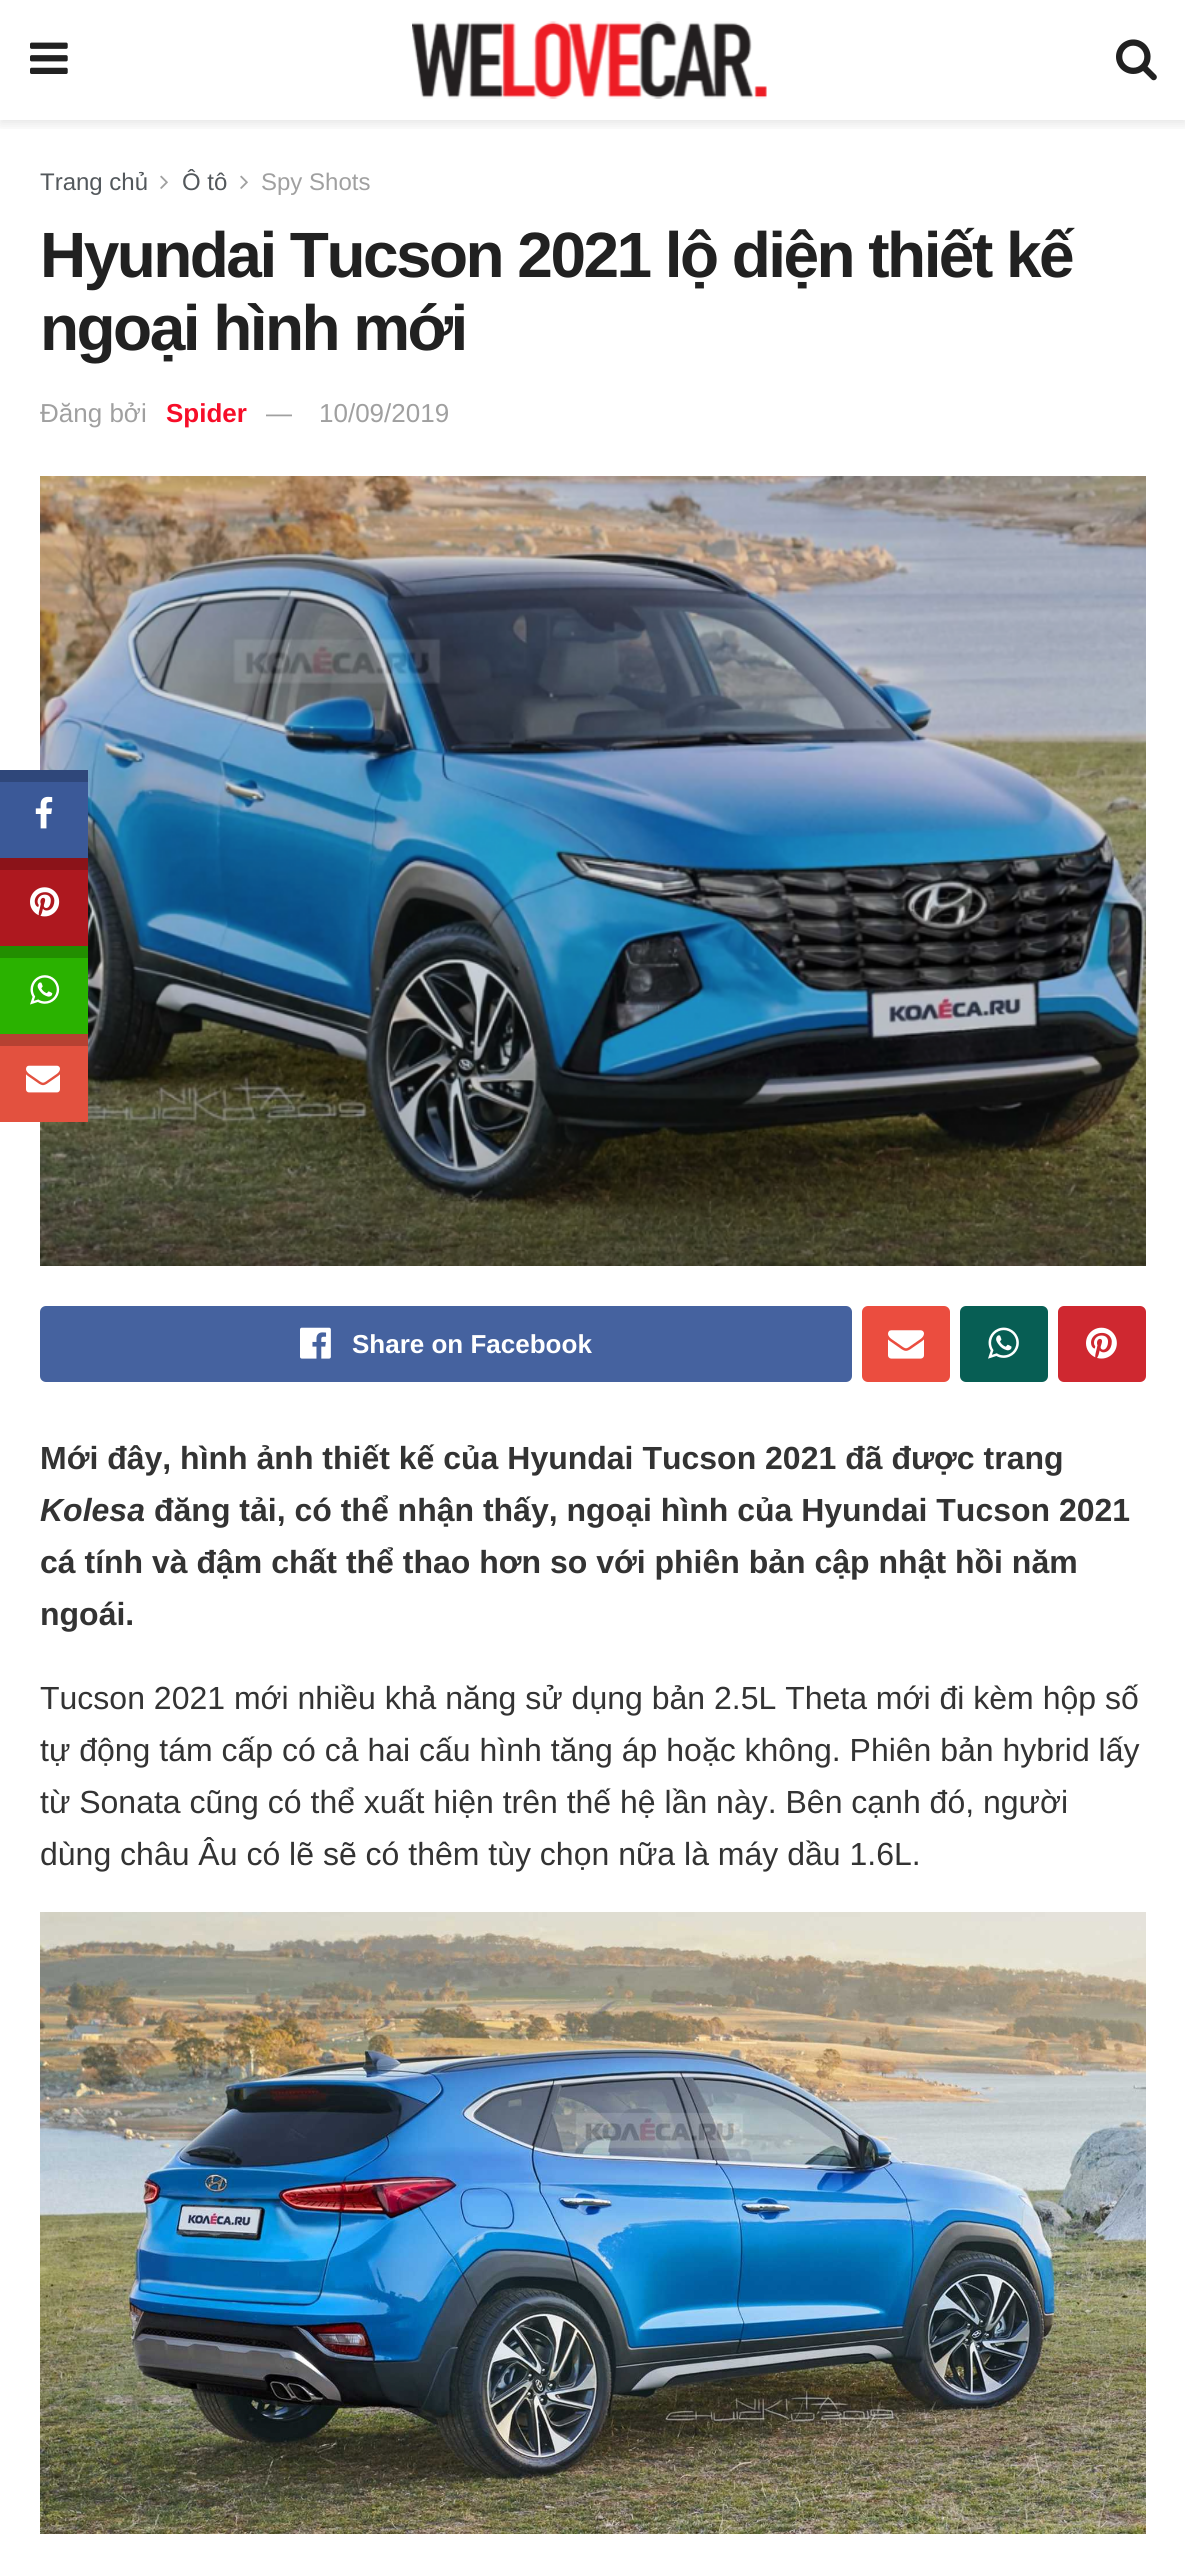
#include <cairo.h>
#include <math.h>
#include <stddef.h>

static cairo_t *ctx;

static void use_color(int r, int g, int b) {
    cairo_set_source_rgb(ctx, r / 255.0, g / 255.0, b / 255.0);
}

static void spaced_text(double x, double y, const char *s, double letter, double word) {
    cairo_move_to(ctx, x, y);
    while (*s) {
        char ch[5] = {0};
        int n = 0;
        do ch[n++] = *s++; while ((*s & 0xC0) == 0x80);
        cairo_show_text(ctx, ch);
        cairo_rel_move_to(ctx, letter + word * (*ch == ' '), 0);
    }
}

static void round_rect(double x, double y, double w, double h, double r) {
    cairo_new_sub_path(ctx);
    cairo_arc(ctx, x + w - r, y + h - r, r, 0, M_PI / 2);
    cairo_arc(ctx, x + r, y + h - r, r, M_PI / 2, M_PI);
    cairo_arc(ctx, x + r, y + r, r, M_PI, 1.5 * M_PI);
    cairo_arc(ctx, x + w - r, y + r, r, 1.5 * M_PI, 2 * M_PI);
    cairo_close_path(ctx);
}

static void shadow(double x, double y, double w, double h, double r, double blur, double alpha) {
    cairo_push_group_with_content(ctx, CAIRO_CONTENT_ALPHA);
    cairo_set_operator(ctx, CAIRO_OPERATOR_SOURCE);
    for (int i = 15; i >= -15 && fmin(w, h) + blur * i / 3 > 0; i -= 2) {
        double e = blur * i / 6;
        cairo_set_source_rgba(ctx, 0, 0, 0, alpha * erfc((i - 1) / 8.5) / 2);
        round_rect(x - e, y - e, w + 2 * e, h + 2 * e, fmax(0, fmin(r + e + blur * .6, fmin(w, h) / 2 + e)));
        cairo_fill(ctx);
    }
    cairo_pattern_t *soft = cairo_pop_group(ctx);
    cairo_mask(ctx, soft);
    cairo_pattern_destroy(soft);
}

static void picture(const char *path, double x, double y, double w, double h) {
    cairo_surface_t *image = cairo_image_surface_create_from_png(path);
    cairo_save(ctx);
    cairo_set_source_surface(ctx, image, x, y);
    cairo_rectangle(ctx, x, y, w, h);
    cairo_fill(ctx);
    cairo_restore(ctx);
    cairo_surface_destroy(image);
}

int main(void) {
    cairo_surface_t *surface = cairo_image_surface_create(CAIRO_FORMAT_RGB24, 1185, 2555);
    ctx = cairo_create(surface);
    cairo_font_options_t *options = cairo_font_options_create();
    cairo_font_options_set_hint_metrics(options, CAIRO_HINT_METRICS_OFF);
    cairo_font_options_set_hint_style(options, CAIRO_HINT_STYLE_NONE);
    cairo_set_font_options(ctx, options);
    cairo_set_miter_limit(ctx, 4);
    use_color(255, 255, 255);
    cairo_paint(ctx);
    cairo_save(ctx);
    cairo_rectangle(ctx, 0, 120, 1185, 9);
    cairo_clip(ctx);
    use_color(0, 0, 0);
    shadow(0, 4, 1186, 120, 0, 6, 0.1);
    cairo_restore(ctx);
    picture("img1.png", 30, 42, 38, 32);
    picture("img2.png", 412, 21, 355, 78);
    picture("img3.png", 1116, 39, 41, 42);
    cairo_select_font_face(ctx, "Liberation Sans", CAIRO_FONT_SLANT_NORMAL, CAIRO_FONT_WEIGHT_NORMAL);
    cairo_set_font_size(ctx, 24);
    use_color(83, 88, 92);
    cairo_move_to(ctx, 40, 190);
    cairo_show_text(ctx, "Trang chủ");
    picture("img4.png", 160, 175, 8, 14);
    cairo_move_to(ctx, 182, 190);
    cairo_show_text(ctx, "Ô tô");
    picture("img4.png", 240, 175, 8, 14);
    use_color(160, 160, 160);
    cairo_move_to(ctx, 261, 190);
    cairo_show_text(ctx, "Spy Shots");
    cairo_select_font_face(ctx, "Liberation Sans", CAIRO_FONT_SLANT_NORMAL, CAIRO_FONT_WEIGHT_BOLD);
    cairo_set_font_size(ctx, 64);
    use_color(33, 33, 33);
    spaced_text(40, 277, "Hyundai Tucson 2021 lộ diện thiết kế", -2.55, 0);
    spaced_text(40, 350, "ngoại hình mới", -2.55, 0);
    cairo_select_font_face(ctx, "Liberation Sans", CAIRO_FONT_SLANT_NORMAL, CAIRO_FONT_WEIGHT_NORMAL);
    cairo_set_font_size(ctx, 26);
    use_color(160, 160, 160);
    cairo_move_to(ctx, 40, 422);
    cairo_show_text(ctx, "Đăng bởi");
    cairo_select_font_face(ctx, "Liberation Sans", CAIRO_FONT_SLANT_NORMAL, CAIRO_FONT_WEIGHT_BOLD);
    use_color(247, 13, 40);
    cairo_move_to(ctx, 166, 422);
    cairo_show_text(ctx, "Spider");
    cairo_select_font_face(ctx, "Liberation Sans", CAIRO_FONT_SLANT_NORMAL, CAIRO_FONT_WEIGHT_NORMAL);
    use_color(160, 160, 160);
    cairo_move_to(ctx, 266, 422);
    cairo_show_text(ctx, "—");
    cairo_move_to(ctx, 319, 422);
    cairo_show_text(ctx, "10/09/2019");
    picture("img5.png", 40, 476, 1106, 790);
    use_color(69, 98, 159);
    round_rect(40, 1306, 812, 76, 6);
    cairo_fill(ctx);
    picture("img6.png", 300, 1327, 31, 32);
    cairo_select_font_face(ctx, "Liberation Sans", CAIRO_FONT_SLANT_NORMAL, CAIRO_FONT_WEIGHT_BOLD);
    use_color(255, 255, 255);
    cairo_move_to(ctx, 352, 1353);
    cairo_show_text(ctx, "Share on Facebook");
    use_color(235, 77, 63);
    round_rect(862, 1306, 88, 76, 6);
    cairo_fill(ctx);
    picture("img7.png", 888, 1330, 36, 29);
    use_color(7, 94, 84);
    round_rect(960, 1306, 88, 76, 6);
    cairo_fill(ctx);
    picture("img8.png", 988, 1327, 31, 32);
    use_color(207, 40, 48);
    round_rect(1058, 1306, 88, 76, 6);
    cairo_fill(ctx);
    picture("img9.png", 1086, 1327, 31, 32);
    cairo_set_font_size(ctx, 32);
    use_color(51, 51, 51);
    cairo_move_to(ctx, 40, 1469);
    cairo_show_text(ctx, "Mới đây, hình ảnh thiết kế của Hyundai Tucson 2021 đã được trang");
    cairo_select_font_face(ctx, "Liberation Sans", CAIRO_FONT_SLANT_ITALIC, CAIRO_FONT_WEIGHT_BOLD);
    cairo_move_to(ctx, 40, 1521);
    cairo_show_text(ctx, "Kolesa");
    cairo_select_font_face(ctx, "Liberation Sans", CAIRO_FONT_SLANT_NORMAL, CAIRO_FONT_WEIGHT_BOLD);
    cairo_move_to(ctx, 154, 1521);
    cairo_show_text(ctx, "đăng tải, có thể nhận thấy, ngoại hình của Hyundai Tucson 2021");
    cairo_move_to(ctx, 40, 1573);
    cairo_show_text(ctx, "cá tính và đậm chất thể thao hơn so với phiên bản cập nhật hồi năm");
    cairo_move_to(ctx, 40, 1625);
    cairo_show_text(ctx, "ngoái.");
    cairo_select_font_face(ctx, "Liberation Sans", CAIRO_FONT_SLANT_NORMAL, CAIRO_FONT_WEIGHT_NORMAL);
    cairo_move_to(ctx, 40, 1709);
    cairo_show_text(ctx, "Tucson 2021 mới nhiều khả năng sử dụng bản 2.5L Theta mới đi kèm hộp số");
    cairo_move_to(ctx, 40, 1761);
    cairo_show_text(ctx, "tự động tám cấp có cả hai cấu hình tăng áp hoặc không. Phiên bản hybrid lấy");
    cairo_move_to(ctx, 40, 1813);
    cairo_show_text(ctx, "từ Sonata cũng có thể xuất hiện trên thế hệ lần này. Bên cạnh đó, người");
    cairo_move_to(ctx, 40, 1865);
    cairo_show_text(ctx, "dùng châu Âu có lẽ sẽ có thêm tùy chọn nữa là máy dầu 1.6L.");
    picture("img10.png", 40, 1912, 1106, 622);
    use_color(59, 89, 152);
    cairo_rectangle(ctx, 0, 782, 88, 76);
    cairo_fill(ctx);
    use_color(47, 71, 122);
    cairo_rectangle(ctx, 0, 770, 88, 12);
    cairo_fill(ctx);
    picture("img11.png", 35, 796, 18, 33);
    use_color(174, 24, 31);
    cairo_rectangle(ctx, 0, 870, 88, 76);
    cairo_fill(ctx);
    use_color(139, 19, 25);
    cairo_rectangle(ctx, 0, 858, 88, 12);
    cairo_fill(ctx);
    picture("img12.png", 30, 887, 30, 30);
    use_color(42, 178, 0);
    cairo_rectangle(ctx, 0, 958, 88, 76);
    cairo_fill(ctx);
    use_color(34, 142, 0);
    cairo_rectangle(ctx, 0, 946, 88, 12);
    cairo_fill(ctx);
    picture("img13.png", 30, 975, 30, 30);
    use_color(227, 81, 63);
    cairo_rectangle(ctx, 0, 1046, 88, 76);
    cairo_fill(ctx);
    use_color(182, 65, 50);
    cairo_rectangle(ctx, 0, 1034, 88, 12);
    cairo_fill(ctx);
    picture("img14.png", 26, 1065, 34, 28);
    cairo_surface_write_to_png(surface, "result.png");
    cairo_font_options_destroy(options);
    cairo_destroy(ctx);
    cairo_surface_destroy(surface);
    return 0;
}
